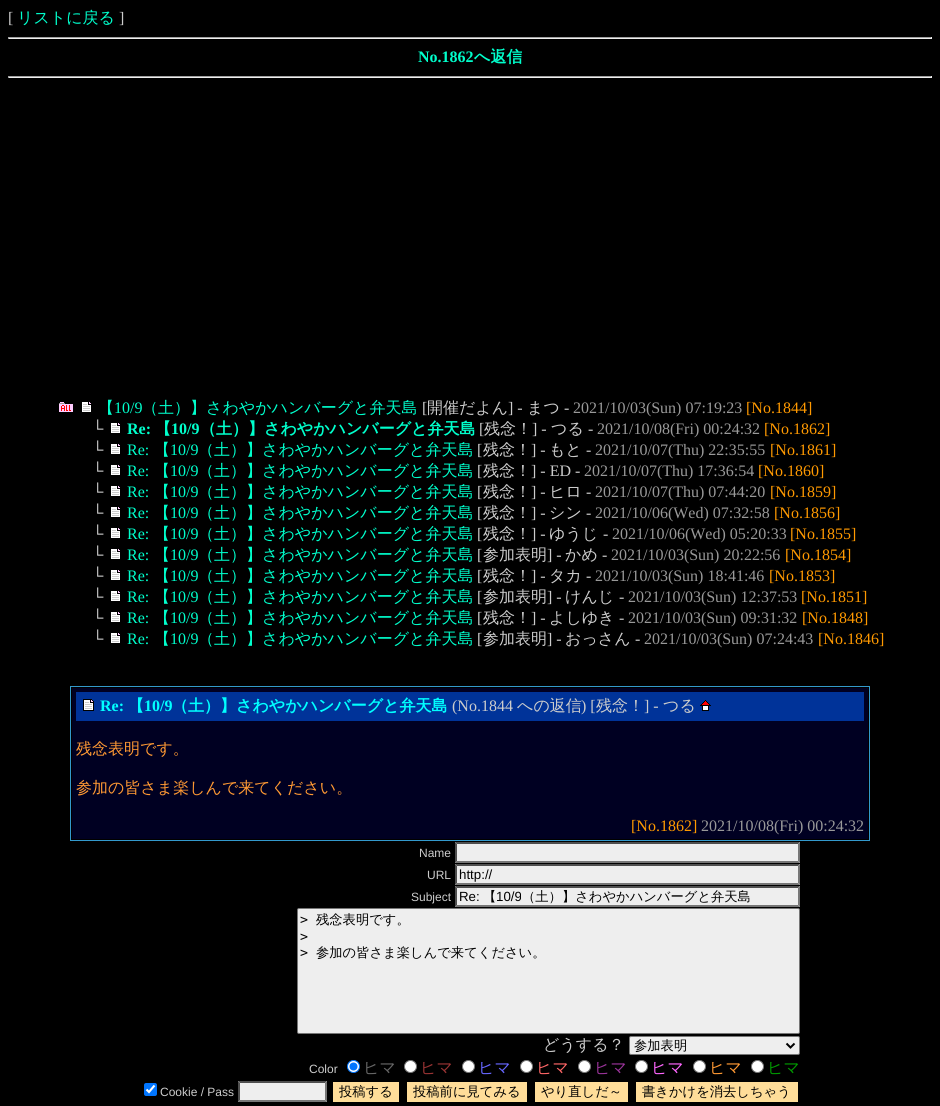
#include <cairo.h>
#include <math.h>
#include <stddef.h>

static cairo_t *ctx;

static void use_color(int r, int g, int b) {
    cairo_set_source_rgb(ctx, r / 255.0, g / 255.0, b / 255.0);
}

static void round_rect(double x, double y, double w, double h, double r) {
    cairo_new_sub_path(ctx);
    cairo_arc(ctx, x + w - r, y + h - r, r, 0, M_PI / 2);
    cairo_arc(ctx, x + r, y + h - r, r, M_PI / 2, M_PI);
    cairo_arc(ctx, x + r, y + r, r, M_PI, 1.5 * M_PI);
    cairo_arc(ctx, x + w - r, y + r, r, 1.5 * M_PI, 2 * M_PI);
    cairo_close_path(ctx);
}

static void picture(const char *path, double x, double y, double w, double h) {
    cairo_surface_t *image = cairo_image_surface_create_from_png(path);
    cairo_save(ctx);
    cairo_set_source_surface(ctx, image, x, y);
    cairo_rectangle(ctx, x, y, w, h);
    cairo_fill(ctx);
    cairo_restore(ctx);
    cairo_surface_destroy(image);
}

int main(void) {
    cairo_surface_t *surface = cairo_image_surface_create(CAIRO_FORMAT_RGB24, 940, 1106);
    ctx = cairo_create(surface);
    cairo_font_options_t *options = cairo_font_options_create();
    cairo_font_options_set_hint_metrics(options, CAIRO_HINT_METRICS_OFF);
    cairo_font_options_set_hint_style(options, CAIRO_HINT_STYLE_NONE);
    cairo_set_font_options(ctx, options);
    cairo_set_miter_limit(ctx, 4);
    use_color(0, 0, 0);
    cairo_paint(ctx);
    cairo_select_font_face(ctx, "Liberation Serif", CAIRO_FONT_SLANT_NORMAL, CAIRO_FONT_WEIGHT_NORMAL);
    cairo_set_font_size(ctx, 16);
    use_color(204, 204, 204);
    cairo_move_to(ctx, 8, 23);
    cairo_show_text(ctx, "[");
    cairo_select_font_face(ctx, "WenQuanYi Zen Hei Medium", CAIRO_FONT_SLANT_NORMAL, CAIRO_FONT_WEIGHT_NORMAL);
    use_color(0, 255, 204);
    cairo_move_to(ctx, 17, 23);
    cairo_show_text(ctx, "リストに戻る");
    cairo_select_font_face(ctx, "Liberation Serif", CAIRO_FONT_SLANT_NORMAL, CAIRO_FONT_WEIGHT_NORMAL);
    use_color(204, 204, 204);
    cairo_move_to(ctx, 119, 23);
    cairo_show_text(ctx, "]");
    use_color(159, 159, 159);
    cairo_rectangle(ctx, 8, 37, 924, 1);
    cairo_fill(ctx);
    use_color(238, 238, 238);
    cairo_rectangle(ctx, 931, 37, 1, 2);
    cairo_fill(ctx);
    cairo_rectangle(ctx, 8, 38, 924, 1);
    cairo_fill(ctx);
    use_color(159, 159, 159);
    cairo_rectangle(ctx, 8, 37, 1, 2);
    cairo_fill(ctx);
    cairo_select_font_face(ctx, "Liberation Serif", CAIRO_FONT_SLANT_NORMAL, CAIRO_FONT_WEIGHT_BOLD);
    use_color(0, 255, 204);
    cairo_move_to(ctx, 418, 62);
    cairo_show_text(ctx, "No.1862");
    cairo_select_font_face(ctx, "WenQuanYi Zen Hei", CAIRO_FONT_SLANT_NORMAL, CAIRO_FONT_WEIGHT_BOLD);
    cairo_move_to(ctx, 474, 62);
    cairo_show_text(ctx, "へ返信");
    use_color(159, 159, 159);
    cairo_rectangle(ctx, 8, 76, 924, 1);
    cairo_fill(ctx);
    use_color(238, 238, 238);
    cairo_rectangle(ctx, 931, 76, 1, 2);
    cairo_fill(ctx);
    cairo_rectangle(ctx, 8, 77, 924, 1);
    cairo_fill(ctx);
    use_color(159, 159, 159);
    cairo_rectangle(ctx, 8, 76, 1, 2);
    cairo_fill(ctx);
    picture("img1.png", 59, 402, 14, 10);
    picture("img2.png", 82, 402, 9, 10);
    cairo_select_font_face(ctx, "WenQuanYi Zen Hei Medium", CAIRO_FONT_SLANT_NORMAL, CAIRO_FONT_WEIGHT_NORMAL);
    use_color(0, 255, 204);
    cairo_move_to(ctx, 98, 413);
    cairo_show_text(ctx, "【");
    cairo_select_font_face(ctx, "Liberation Serif", CAIRO_FONT_SLANT_NORMAL, CAIRO_FONT_WEIGHT_NORMAL);
    cairo_move_to(ctx, 114, 413);
    cairo_show_text(ctx, "10/9");
    cairo_select_font_face(ctx, "WenQuanYi Zen Hei Medium", CAIRO_FONT_SLANT_NORMAL, CAIRO_FONT_WEIGHT_NORMAL);
    cairo_move_to(ctx, 142, 413);
    cairo_show_text(ctx, "（土）】さわやかハンバーグと弁天島");
    cairo_select_font_face(ctx, "Liberation Serif", CAIRO_FONT_SLANT_NORMAL, CAIRO_FONT_WEIGHT_NORMAL);
    use_color(204, 204, 204);
    cairo_move_to(ctx, 422, 413);
    cairo_show_text(ctx, "[");
    cairo_select_font_face(ctx, "WenQuanYi Zen Hei Medium", CAIRO_FONT_SLANT_NORMAL, CAIRO_FONT_WEIGHT_NORMAL);
    cairo_move_to(ctx, 427, 413);
    cairo_show_text(ctx, "開催だよん");
    cairo_select_font_face(ctx, "Liberation Serif", CAIRO_FONT_SLANT_NORMAL, CAIRO_FONT_WEIGHT_NORMAL);
    cairo_move_to(ctx, 508, 413);
    cairo_show_text(ctx, "] -");
    cairo_select_font_face(ctx, "WenQuanYi Zen Hei Medium", CAIRO_FONT_SLANT_NORMAL, CAIRO_FONT_WEIGHT_NORMAL);
    cairo_move_to(ctx, 527, 413);
    cairo_show_text(ctx, "まつ");
    cairo_select_font_face(ctx, "Liberation Serif", CAIRO_FONT_SLANT_NORMAL, CAIRO_FONT_WEIGHT_NORMAL);
    cairo_move_to(ctx, 564, 413);
    cairo_show_text(ctx, "-");
    use_color(153, 153, 153);
    cairo_move_to(ctx, 573, 413);
    cairo_show_text(ctx, "2021/10/03(Sun) 07:19:23");
    use_color(255, 153, 0);
    cairo_move_to(ctx, 746, 413);
    cairo_show_text(ctx, "[No.1844]");
    use_color(204, 204, 204);
    cairo_move_to(ctx, 92, 434);
    cairo_show_text(ctx, "└");
    picture("img2.png", 111, 423, 9, 10);
    cairo_select_font_face(ctx, "Liberation Serif", CAIRO_FONT_SLANT_NORMAL, CAIRO_FONT_WEIGHT_BOLD);
    use_color(0, 255, 204);
    cairo_move_to(ctx, 127, 434);
    cairo_show_text(ctx, "Re:");
    cairo_select_font_face(ctx, "WenQuanYi Zen Hei", CAIRO_FONT_SLANT_NORMAL, CAIRO_FONT_WEIGHT_BOLD);
    cairo_move_to(ctx, 155, 434);
    cairo_show_text(ctx, "【");
    cairo_select_font_face(ctx, "Liberation Serif", CAIRO_FONT_SLANT_NORMAL, CAIRO_FONT_WEIGHT_BOLD);
    cairo_move_to(ctx, 171, 434);
    cairo_show_text(ctx, "10/9");
    cairo_select_font_face(ctx, "WenQuanYi Zen Hei", CAIRO_FONT_SLANT_NORMAL, CAIRO_FONT_WEIGHT_BOLD);
    cairo_move_to(ctx, 200, 434);
    cairo_show_text(ctx, "（土）】さわやかハンバーグと弁天島");
    cairo_select_font_face(ctx, "Liberation Serif", CAIRO_FONT_SLANT_NORMAL, CAIRO_FONT_WEIGHT_NORMAL);
    use_color(204, 204, 204);
    cairo_move_to(ctx, 479, 434);
    cairo_show_text(ctx, "[");
    cairo_select_font_face(ctx, "WenQuanYi Zen Hei Medium", CAIRO_FONT_SLANT_NORMAL, CAIRO_FONT_WEIGHT_NORMAL);
    cairo_move_to(ctx, 484, 434);
    cairo_show_text(ctx, "残念！");
    cairo_select_font_face(ctx, "Liberation Serif", CAIRO_FONT_SLANT_NORMAL, CAIRO_FONT_WEIGHT_NORMAL);
    cairo_move_to(ctx, 532, 434);
    cairo_show_text(ctx, "] -");
    cairo_select_font_face(ctx, "WenQuanYi Zen Hei Medium", CAIRO_FONT_SLANT_NORMAL, CAIRO_FONT_WEIGHT_NORMAL);
    cairo_move_to(ctx, 551, 434);
    cairo_show_text(ctx, "つる");
    cairo_select_font_face(ctx, "Liberation Serif", CAIRO_FONT_SLANT_NORMAL, CAIRO_FONT_WEIGHT_NORMAL);
    cairo_move_to(ctx, 588, 434);
    cairo_show_text(ctx, "-");
    use_color(153, 153, 153);
    cairo_move_to(ctx, 597, 434);
    cairo_show_text(ctx, "2021/10/08(Fri) 00:24:32");
    use_color(255, 153, 0);
    cairo_move_to(ctx, 764, 434);
    cairo_show_text(ctx, "[No.1862]");
    use_color(204, 204, 204);
    cairo_move_to(ctx, 92, 455);
    cairo_show_text(ctx, "└");
    picture("img2.png", 111, 444, 9, 10);
    use_color(0, 255, 204);
    cairo_move_to(ctx, 127, 455);
    cairo_show_text(ctx, "Re:");
    cairo_select_font_face(ctx, "WenQuanYi Zen Hei Medium", CAIRO_FONT_SLANT_NORMAL, CAIRO_FONT_WEIGHT_NORMAL);
    cairo_move_to(ctx, 154, 455);
    cairo_show_text(ctx, "【");
    cairo_select_font_face(ctx, "Liberation Serif", CAIRO_FONT_SLANT_NORMAL, CAIRO_FONT_WEIGHT_NORMAL);
    cairo_move_to(ctx, 170, 455);
    cairo_show_text(ctx, "10/9");
    cairo_select_font_face(ctx, "WenQuanYi Zen Hei Medium", CAIRO_FONT_SLANT_NORMAL, CAIRO_FONT_WEIGHT_NORMAL);
    cairo_move_to(ctx, 198, 455);
    cairo_show_text(ctx, "（土）】さわやかハンバーグと弁天島");
    cairo_select_font_face(ctx, "Liberation Serif", CAIRO_FONT_SLANT_NORMAL, CAIRO_FONT_WEIGHT_NORMAL);
    use_color(204, 204, 204);
    cairo_move_to(ctx, 477, 455);
    cairo_show_text(ctx, "[");
    cairo_select_font_face(ctx, "WenQuanYi Zen Hei Medium", CAIRO_FONT_SLANT_NORMAL, CAIRO_FONT_WEIGHT_NORMAL);
    cairo_move_to(ctx, 483, 455);
    cairo_show_text(ctx, "残念！");
    cairo_select_font_face(ctx, "Liberation Serif", CAIRO_FONT_SLANT_NORMAL, CAIRO_FONT_WEIGHT_NORMAL);
    cairo_move_to(ctx, 531, 455);
    cairo_show_text(ctx, "] -");
    cairo_select_font_face(ctx, "WenQuanYi Zen Hei Medium", CAIRO_FONT_SLANT_NORMAL, CAIRO_FONT_WEIGHT_NORMAL);
    cairo_move_to(ctx, 549, 455);
    cairo_show_text(ctx, "もと");
    cairo_select_font_face(ctx, "Liberation Serif", CAIRO_FONT_SLANT_NORMAL, CAIRO_FONT_WEIGHT_NORMAL);
    cairo_move_to(ctx, 586, 455);
    cairo_show_text(ctx, "-");
    use_color(153, 153, 153);
    cairo_move_to(ctx, 595, 455);
    cairo_show_text(ctx, "2021/10/07(Thu) 22:35:55");
    use_color(255, 153, 0);
    cairo_move_to(ctx, 770, 455);
    cairo_show_text(ctx, "[No.1861]");
    use_color(204, 204, 204);
    cairo_move_to(ctx, 92, 476);
    cairo_show_text(ctx, "└");
    picture("img2.png", 111, 465, 9, 10);
    use_color(0, 255, 204);
    cairo_move_to(ctx, 127, 476);
    cairo_show_text(ctx, "Re:");
    cairo_select_font_face(ctx, "WenQuanYi Zen Hei Medium", CAIRO_FONT_SLANT_NORMAL, CAIRO_FONT_WEIGHT_NORMAL);
    cairo_move_to(ctx, 154, 476);
    cairo_show_text(ctx, "【");
    cairo_select_font_face(ctx, "Liberation Serif", CAIRO_FONT_SLANT_NORMAL, CAIRO_FONT_WEIGHT_NORMAL);
    cairo_move_to(ctx, 170, 476);
    cairo_show_text(ctx, "10/9");
    cairo_select_font_face(ctx, "WenQuanYi Zen Hei Medium", CAIRO_FONT_SLANT_NORMAL, CAIRO_FONT_WEIGHT_NORMAL);
    cairo_move_to(ctx, 198, 476);
    cairo_show_text(ctx, "（土）】さわやかハンバーグと弁天島");
    cairo_select_font_face(ctx, "Liberation Serif", CAIRO_FONT_SLANT_NORMAL, CAIRO_FONT_WEIGHT_NORMAL);
    use_color(204, 204, 204);
    cairo_move_to(ctx, 477, 476);
    cairo_show_text(ctx, "[");
    cairo_select_font_face(ctx, "WenQuanYi Zen Hei Medium", CAIRO_FONT_SLANT_NORMAL, CAIRO_FONT_WEIGHT_NORMAL);
    cairo_move_to(ctx, 483, 476);
    cairo_show_text(ctx, "残念！");
    cairo_select_font_face(ctx, "Liberation Serif", CAIRO_FONT_SLANT_NORMAL, CAIRO_FONT_WEIGHT_NORMAL);
    cairo_move_to(ctx, 531, 476);
    cairo_show_text(ctx, "] - ED -");
    use_color(153, 153, 153);
    cairo_move_to(ctx, 584, 476);
    cairo_show_text(ctx, "2021/10/07(Thu) 17:36:54");
    use_color(255, 153, 0);
    cairo_move_to(ctx, 758, 476);
    cairo_show_text(ctx, "[No.1860]");
    use_color(204, 204, 204);
    cairo_move_to(ctx, 92, 497);
    cairo_show_text(ctx, "└");
    picture("img2.png", 111, 486, 9, 10);
    use_color(0, 255, 204);
    cairo_move_to(ctx, 127, 497);
    cairo_show_text(ctx, "Re:");
    cairo_select_font_face(ctx, "WenQuanYi Zen Hei Medium", CAIRO_FONT_SLANT_NORMAL, CAIRO_FONT_WEIGHT_NORMAL);
    cairo_move_to(ctx, 154, 497);
    cairo_show_text(ctx, "【");
    cairo_select_font_face(ctx, "Liberation Serif", CAIRO_FONT_SLANT_NORMAL, CAIRO_FONT_WEIGHT_NORMAL);
    cairo_move_to(ctx, 170, 497);
    cairo_show_text(ctx, "10/9");
    cairo_select_font_face(ctx, "WenQuanYi Zen Hei Medium", CAIRO_FONT_SLANT_NORMAL, CAIRO_FONT_WEIGHT_NORMAL);
    cairo_move_to(ctx, 198, 497);
    cairo_show_text(ctx, "（土）】さわやかハンバーグと弁天島");
    cairo_select_font_face(ctx, "Liberation Serif", CAIRO_FONT_SLANT_NORMAL, CAIRO_FONT_WEIGHT_NORMAL);
    use_color(204, 204, 204);
    cairo_move_to(ctx, 477, 497);
    cairo_show_text(ctx, "[");
    cairo_select_font_face(ctx, "WenQuanYi Zen Hei Medium", CAIRO_FONT_SLANT_NORMAL, CAIRO_FONT_WEIGHT_NORMAL);
    cairo_move_to(ctx, 483, 497);
    cairo_show_text(ctx, "残念！");
    cairo_select_font_face(ctx, "Liberation Serif", CAIRO_FONT_SLANT_NORMAL, CAIRO_FONT_WEIGHT_NORMAL);
    cairo_move_to(ctx, 531, 497);
    cairo_show_text(ctx, "] -");
    cairo_select_font_face(ctx, "WenQuanYi Zen Hei Medium", CAIRO_FONT_SLANT_NORMAL, CAIRO_FONT_WEIGHT_NORMAL);
    cairo_move_to(ctx, 549, 497);
    cairo_show_text(ctx, "ヒロ");
    cairo_select_font_face(ctx, "Liberation Serif", CAIRO_FONT_SLANT_NORMAL, CAIRO_FONT_WEIGHT_NORMAL);
    cairo_move_to(ctx, 586, 497);
    cairo_show_text(ctx, "-");
    use_color(153, 153, 153);
    cairo_move_to(ctx, 595, 497);
    cairo_show_text(ctx, "2021/10/07(Thu) 07:44:20");
    use_color(255, 153, 0);
    cairo_move_to(ctx, 770, 497);
    cairo_show_text(ctx, "[No.1859]");
    use_color(204, 204, 204);
    cairo_move_to(ctx, 92, 518);
    cairo_show_text(ctx, "└");
    picture("img2.png", 111, 507, 9, 10);
    use_color(0, 255, 204);
    cairo_move_to(ctx, 127, 518);
    cairo_show_text(ctx, "Re:");
    cairo_select_font_face(ctx, "WenQuanYi Zen Hei Medium", CAIRO_FONT_SLANT_NORMAL, CAIRO_FONT_WEIGHT_NORMAL);
    cairo_move_to(ctx, 154, 518);
    cairo_show_text(ctx, "【");
    cairo_select_font_face(ctx, "Liberation Serif", CAIRO_FONT_SLANT_NORMAL, CAIRO_FONT_WEIGHT_NORMAL);
    cairo_move_to(ctx, 170, 518);
    cairo_show_text(ctx, "10/9");
    cairo_select_font_face(ctx, "WenQuanYi Zen Hei Medium", CAIRO_FONT_SLANT_NORMAL, CAIRO_FONT_WEIGHT_NORMAL);
    cairo_move_to(ctx, 198, 518);
    cairo_show_text(ctx, "（土）】さわやかハンバーグと弁天島");
    cairo_select_font_face(ctx, "Liberation Serif", CAIRO_FONT_SLANT_NORMAL, CAIRO_FONT_WEIGHT_NORMAL);
    use_color(204, 204, 204);
    cairo_move_to(ctx, 477, 518);
    cairo_show_text(ctx, "[");
    cairo_select_font_face(ctx, "WenQuanYi Zen Hei Medium", CAIRO_FONT_SLANT_NORMAL, CAIRO_FONT_WEIGHT_NORMAL);
    cairo_move_to(ctx, 483, 518);
    cairo_show_text(ctx, "残念！");
    cairo_select_font_face(ctx, "Liberation Serif", CAIRO_FONT_SLANT_NORMAL, CAIRO_FONT_WEIGHT_NORMAL);
    cairo_move_to(ctx, 531, 518);
    cairo_show_text(ctx, "] -");
    cairo_select_font_face(ctx, "WenQuanYi Zen Hei Medium", CAIRO_FONT_SLANT_NORMAL, CAIRO_FONT_WEIGHT_NORMAL);
    cairo_move_to(ctx, 549, 518);
    cairo_show_text(ctx, "シン");
    cairo_select_font_face(ctx, "Liberation Serif", CAIRO_FONT_SLANT_NORMAL, CAIRO_FONT_WEIGHT_NORMAL);
    cairo_move_to(ctx, 586, 518);
    cairo_show_text(ctx, "-");
    use_color(153, 153, 153);
    cairo_move_to(ctx, 595, 518);
    cairo_show_text(ctx, "2021/10/06(Wed) 07:32:58");
    use_color(255, 153, 0);
    cairo_move_to(ctx, 774, 518);
    cairo_show_text(ctx, "[No.1856]");
    use_color(204, 204, 204);
    cairo_move_to(ctx, 92, 539);
    cairo_show_text(ctx, "└");
    picture("img2.png", 111, 528, 9, 10);
    use_color(0, 255, 204);
    cairo_move_to(ctx, 127, 539);
    cairo_show_text(ctx, "Re:");
    cairo_select_font_face(ctx, "WenQuanYi Zen Hei Medium", CAIRO_FONT_SLANT_NORMAL, CAIRO_FONT_WEIGHT_NORMAL);
    cairo_move_to(ctx, 154, 539);
    cairo_show_text(ctx, "【");
    cairo_select_font_face(ctx, "Liberation Serif", CAIRO_FONT_SLANT_NORMAL, CAIRO_FONT_WEIGHT_NORMAL);
    cairo_move_to(ctx, 170, 539);
    cairo_show_text(ctx, "10/9");
    cairo_select_font_face(ctx, "WenQuanYi Zen Hei Medium", CAIRO_FONT_SLANT_NORMAL, CAIRO_FONT_WEIGHT_NORMAL);
    cairo_move_to(ctx, 198, 539);
    cairo_show_text(ctx, "（土）】さわやかハンバーグと弁天島");
    cairo_select_font_face(ctx, "Liberation Serif", CAIRO_FONT_SLANT_NORMAL, CAIRO_FONT_WEIGHT_NORMAL);
    use_color(204, 204, 204);
    cairo_move_to(ctx, 477, 539);
    cairo_show_text(ctx, "[");
    cairo_select_font_face(ctx, "WenQuanYi Zen Hei Medium", CAIRO_FONT_SLANT_NORMAL, CAIRO_FONT_WEIGHT_NORMAL);
    cairo_move_to(ctx, 483, 539);
    cairo_show_text(ctx, "残念！");
    cairo_select_font_face(ctx, "Liberation Serif", CAIRO_FONT_SLANT_NORMAL, CAIRO_FONT_WEIGHT_NORMAL);
    cairo_move_to(ctx, 531, 539);
    cairo_show_text(ctx, "] -");
    cairo_select_font_face(ctx, "WenQuanYi Zen Hei Medium", CAIRO_FONT_SLANT_NORMAL, CAIRO_FONT_WEIGHT_NORMAL);
    cairo_move_to(ctx, 549, 539);
    cairo_show_text(ctx, "ゆうじ");
    cairo_select_font_face(ctx, "Liberation Serif", CAIRO_FONT_SLANT_NORMAL, CAIRO_FONT_WEIGHT_NORMAL);
    cairo_move_to(ctx, 603, 539);
    cairo_show_text(ctx, "-");
    use_color(153, 153, 153);
    cairo_move_to(ctx, 612, 539);
    cairo_show_text(ctx, "2021/10/06(Wed) 05:20:33");
    use_color(255, 153, 0);
    cairo_move_to(ctx, 790, 539);
    cairo_show_text(ctx, "[No.1855]");
    use_color(204, 204, 204);
    cairo_move_to(ctx, 92, 560);
    cairo_show_text(ctx, "└");
    picture("img2.png", 111, 549, 9, 10);
    use_color(0, 255, 204);
    cairo_move_to(ctx, 127, 560);
    cairo_show_text(ctx, "Re:");
    cairo_select_font_face(ctx, "WenQuanYi Zen Hei Medium", CAIRO_FONT_SLANT_NORMAL, CAIRO_FONT_WEIGHT_NORMAL);
    cairo_move_to(ctx, 154, 560);
    cairo_show_text(ctx, "【");
    cairo_select_font_face(ctx, "Liberation Serif", CAIRO_FONT_SLANT_NORMAL, CAIRO_FONT_WEIGHT_NORMAL);
    cairo_move_to(ctx, 170, 560);
    cairo_show_text(ctx, "10/9");
    cairo_select_font_face(ctx, "WenQuanYi Zen Hei Medium", CAIRO_FONT_SLANT_NORMAL, CAIRO_FONT_WEIGHT_NORMAL);
    cairo_move_to(ctx, 198, 560);
    cairo_show_text(ctx, "（土）】さわやかハンバーグと弁天島");
    cairo_select_font_face(ctx, "Liberation Serif", CAIRO_FONT_SLANT_NORMAL, CAIRO_FONT_WEIGHT_NORMAL);
    use_color(204, 204, 204);
    cairo_move_to(ctx, 477, 560);
    cairo_show_text(ctx, "[");
    cairo_select_font_face(ctx, "WenQuanYi Zen Hei Medium", CAIRO_FONT_SLANT_NORMAL, CAIRO_FONT_WEIGHT_NORMAL);
    cairo_move_to(ctx, 483, 560);
    cairo_show_text(ctx, "参加表明");
    cairo_select_font_face(ctx, "Liberation Serif", CAIRO_FONT_SLANT_NORMAL, CAIRO_FONT_WEIGHT_NORMAL);
    cairo_move_to(ctx, 547, 560);
    cairo_show_text(ctx, "] -");
    cairo_select_font_face(ctx, "WenQuanYi Zen Hei Medium", CAIRO_FONT_SLANT_NORMAL, CAIRO_FONT_WEIGHT_NORMAL);
    cairo_move_to(ctx, 565, 560);
    cairo_show_text(ctx, "かめ");
    cairo_select_font_face(ctx, "Liberation Serif", CAIRO_FONT_SLANT_NORMAL, CAIRO_FONT_WEIGHT_NORMAL);
    cairo_move_to(ctx, 602, 560);
    cairo_show_text(ctx, "-");
    use_color(153, 153, 153);
    cairo_move_to(ctx, 611, 560);
    cairo_show_text(ctx, "2021/10/03(Sun) 20:22:56");
    use_color(255, 153, 0);
    cairo_move_to(ctx, 785, 560);
    cairo_show_text(ctx, "[No.1854]");
    use_color(204, 204, 204);
    cairo_move_to(ctx, 92, 581);
    cairo_show_text(ctx, "└");
    picture("img2.png", 111, 570, 9, 10);
    use_color(0, 255, 204);
    cairo_move_to(ctx, 127, 581);
    cairo_show_text(ctx, "Re:");
    cairo_select_font_face(ctx, "WenQuanYi Zen Hei Medium", CAIRO_FONT_SLANT_NORMAL, CAIRO_FONT_WEIGHT_NORMAL);
    cairo_move_to(ctx, 154, 581);
    cairo_show_text(ctx, "【");
    cairo_select_font_face(ctx, "Liberation Serif", CAIRO_FONT_SLANT_NORMAL, CAIRO_FONT_WEIGHT_NORMAL);
    cairo_move_to(ctx, 170, 581);
    cairo_show_text(ctx, "10/9");
    cairo_select_font_face(ctx, "WenQuanYi Zen Hei Medium", CAIRO_FONT_SLANT_NORMAL, CAIRO_FONT_WEIGHT_NORMAL);
    cairo_move_to(ctx, 198, 581);
    cairo_show_text(ctx, "（土）】さわやかハンバーグと弁天島");
    cairo_select_font_face(ctx, "Liberation Serif", CAIRO_FONT_SLANT_NORMAL, CAIRO_FONT_WEIGHT_NORMAL);
    use_color(204, 204, 204);
    cairo_move_to(ctx, 477, 581);
    cairo_show_text(ctx, "[");
    cairo_select_font_face(ctx, "WenQuanYi Zen Hei Medium", CAIRO_FONT_SLANT_NORMAL, CAIRO_FONT_WEIGHT_NORMAL);
    cairo_move_to(ctx, 483, 581);
    cairo_show_text(ctx, "残念！");
    cairo_select_font_face(ctx, "Liberation Serif", CAIRO_FONT_SLANT_NORMAL, CAIRO_FONT_WEIGHT_NORMAL);
    cairo_move_to(ctx, 531, 581);
    cairo_show_text(ctx, "] -");
    cairo_select_font_face(ctx, "WenQuanYi Zen Hei Medium", CAIRO_FONT_SLANT_NORMAL, CAIRO_FONT_WEIGHT_NORMAL);
    cairo_move_to(ctx, 549, 581);
    cairo_show_text(ctx, "タカ");
    cairo_select_font_face(ctx, "Liberation Serif", CAIRO_FONT_SLANT_NORMAL, CAIRO_FONT_WEIGHT_NORMAL);
    cairo_move_to(ctx, 586, 581);
    cairo_show_text(ctx, "-");
    use_color(153, 153, 153);
    cairo_move_to(ctx, 595, 581);
    cairo_show_text(ctx, "2021/10/03(Sun) 18:41:46");
    use_color(255, 153, 0);
    cairo_move_to(ctx, 769, 581);
    cairo_show_text(ctx, "[No.1853]");
    use_color(204, 204, 204);
    cairo_move_to(ctx, 92, 602);
    cairo_show_text(ctx, "└");
    picture("img2.png", 111, 591, 9, 10);
    use_color(0, 255, 204);
    cairo_move_to(ctx, 127, 602);
    cairo_show_text(ctx, "Re:");
    cairo_select_font_face(ctx, "WenQuanYi Zen Hei Medium", CAIRO_FONT_SLANT_NORMAL, CAIRO_FONT_WEIGHT_NORMAL);
    cairo_move_to(ctx, 154, 602);
    cairo_show_text(ctx, "【");
    cairo_select_font_face(ctx, "Liberation Serif", CAIRO_FONT_SLANT_NORMAL, CAIRO_FONT_WEIGHT_NORMAL);
    cairo_move_to(ctx, 170, 602);
    cairo_show_text(ctx, "10/9");
    cairo_select_font_face(ctx, "WenQuanYi Zen Hei Medium", CAIRO_FONT_SLANT_NORMAL, CAIRO_FONT_WEIGHT_NORMAL);
    cairo_move_to(ctx, 198, 602);
    cairo_show_text(ctx, "（土）】さわやかハンバーグと弁天島");
    cairo_select_font_face(ctx, "Liberation Serif", CAIRO_FONT_SLANT_NORMAL, CAIRO_FONT_WEIGHT_NORMAL);
    use_color(204, 204, 204);
    cairo_move_to(ctx, 477, 602);
    cairo_show_text(ctx, "[");
    cairo_select_font_face(ctx, "WenQuanYi Zen Hei Medium", CAIRO_FONT_SLANT_NORMAL, CAIRO_FONT_WEIGHT_NORMAL);
    cairo_move_to(ctx, 483, 602);
    cairo_show_text(ctx, "参加表明");
    cairo_select_font_face(ctx, "Liberation Serif", CAIRO_FONT_SLANT_NORMAL, CAIRO_FONT_WEIGHT_NORMAL);
    cairo_move_to(ctx, 547, 602);
    cairo_show_text(ctx, "] -");
    cairo_select_font_face(ctx, "WenQuanYi Zen Hei Medium", CAIRO_FONT_SLANT_NORMAL, CAIRO_FONT_WEIGHT_NORMAL);
    cairo_move_to(ctx, 565, 602);
    cairo_show_text(ctx, "けんじ");
    cairo_select_font_face(ctx, "Liberation Serif", CAIRO_FONT_SLANT_NORMAL, CAIRO_FONT_WEIGHT_NORMAL);
    cairo_move_to(ctx, 619, 602);
    cairo_show_text(ctx, "-");
    use_color(153, 153, 153);
    cairo_move_to(ctx, 628, 602);
    cairo_show_text(ctx, "2021/10/03(Sun) 12:37:53");
    use_color(255, 153, 0);
    cairo_move_to(ctx, 801, 602);
    cairo_show_text(ctx, "[No.1851]");
    use_color(204, 204, 204);
    cairo_move_to(ctx, 92, 623);
    cairo_show_text(ctx, "└");
    picture("img2.png", 111, 612, 9, 10);
    use_color(0, 255, 204);
    cairo_move_to(ctx, 127, 623);
    cairo_show_text(ctx, "Re:");
    cairo_select_font_face(ctx, "WenQuanYi Zen Hei Medium", CAIRO_FONT_SLANT_NORMAL, CAIRO_FONT_WEIGHT_NORMAL);
    cairo_move_to(ctx, 154, 623);
    cairo_show_text(ctx, "【");
    cairo_select_font_face(ctx, "Liberation Serif", CAIRO_FONT_SLANT_NORMAL, CAIRO_FONT_WEIGHT_NORMAL);
    cairo_move_to(ctx, 170, 623);
    cairo_show_text(ctx, "10/9");
    cairo_select_font_face(ctx, "WenQuanYi Zen Hei Medium", CAIRO_FONT_SLANT_NORMAL, CAIRO_FONT_WEIGHT_NORMAL);
    cairo_move_to(ctx, 198, 623);
    cairo_show_text(ctx, "（土）】さわやかハンバーグと弁天島");
    cairo_select_font_face(ctx, "Liberation Serif", CAIRO_FONT_SLANT_NORMAL, CAIRO_FONT_WEIGHT_NORMAL);
    use_color(204, 204, 204);
    cairo_move_to(ctx, 477, 623);
    cairo_show_text(ctx, "[");
    cairo_select_font_face(ctx, "WenQuanYi Zen Hei Medium", CAIRO_FONT_SLANT_NORMAL, CAIRO_FONT_WEIGHT_NORMAL);
    cairo_move_to(ctx, 483, 623);
    cairo_show_text(ctx, "残念！");
    cairo_select_font_face(ctx, "Liberation Serif", CAIRO_FONT_SLANT_NORMAL, CAIRO_FONT_WEIGHT_NORMAL);
    cairo_move_to(ctx, 531, 623);
    cairo_show_text(ctx, "] -");
    cairo_select_font_face(ctx, "WenQuanYi Zen Hei Medium", CAIRO_FONT_SLANT_NORMAL, CAIRO_FONT_WEIGHT_NORMAL);
    cairo_move_to(ctx, 549, 623);
    cairo_show_text(ctx, "よしゆき");
    cairo_select_font_face(ctx, "Liberation Serif", CAIRO_FONT_SLANT_NORMAL, CAIRO_FONT_WEIGHT_NORMAL);
    cairo_move_to(ctx, 619, 623);
    cairo_show_text(ctx, "-");
    use_color(153, 153, 153);
    cairo_move_to(ctx, 628, 623);
    cairo_show_text(ctx, "2021/10/03(Sun) 09:31:32");
    use_color(255, 153, 0);
    cairo_move_to(ctx, 802, 623);
    cairo_show_text(ctx, "[No.1848]");
    use_color(204, 204, 204);
    cairo_move_to(ctx, 92, 644);
    cairo_show_text(ctx, "└");
    picture("img2.png", 111, 633, 9, 10);
    use_color(0, 255, 204);
    cairo_move_to(ctx, 127, 644);
    cairo_show_text(ctx, "Re:");
    cairo_select_font_face(ctx, "WenQuanYi Zen Hei Medium", CAIRO_FONT_SLANT_NORMAL, CAIRO_FONT_WEIGHT_NORMAL);
    cairo_move_to(ctx, 154, 644);
    cairo_show_text(ctx, "【");
    cairo_select_font_face(ctx, "Liberation Serif", CAIRO_FONT_SLANT_NORMAL, CAIRO_FONT_WEIGHT_NORMAL);
    cairo_move_to(ctx, 170, 644);
    cairo_show_text(ctx, "10/9");
    cairo_select_font_face(ctx, "WenQuanYi Zen Hei Medium", CAIRO_FONT_SLANT_NORMAL, CAIRO_FONT_WEIGHT_NORMAL);
    cairo_move_to(ctx, 198, 644);
    cairo_show_text(ctx, "（土）】さわやかハンバーグと弁天島");
    cairo_select_font_face(ctx, "Liberation Serif", CAIRO_FONT_SLANT_NORMAL, CAIRO_FONT_WEIGHT_NORMAL);
    use_color(204, 204, 204);
    cairo_move_to(ctx, 477, 644);
    cairo_show_text(ctx, "[");
    cairo_select_font_face(ctx, "WenQuanYi Zen Hei Medium", CAIRO_FONT_SLANT_NORMAL, CAIRO_FONT_WEIGHT_NORMAL);
    cairo_move_to(ctx, 483, 644);
    cairo_show_text(ctx, "参加表明");
    cairo_select_font_face(ctx, "Liberation Serif", CAIRO_FONT_SLANT_NORMAL, CAIRO_FONT_WEIGHT_NORMAL);
    cairo_move_to(ctx, 547, 644);
    cairo_show_text(ctx, "] -");
    cairo_select_font_face(ctx, "WenQuanYi Zen Hei Medium", CAIRO_FONT_SLANT_NORMAL, CAIRO_FONT_WEIGHT_NORMAL);
    cairo_move_to(ctx, 565, 644);
    cairo_show_text(ctx, "おっさん");
    cairo_select_font_face(ctx, "Liberation Serif", CAIRO_FONT_SLANT_NORMAL, CAIRO_FONT_WEIGHT_NORMAL);
    cairo_move_to(ctx, 635, 644);
    cairo_show_text(ctx, "-");
    use_color(153, 153, 153);
    cairo_move_to(ctx, 644, 644);
    cairo_show_text(ctx, "2021/10/03(Sun) 07:24:43");
    use_color(255, 153, 0);
    cairo_move_to(ctx, 818, 644);
    cairo_show_text(ctx, "[No.1846]");
    cairo_rectangle(ctx, 70.5, 686.5, 799, 154);
    use_color(51, 153, 204);
    cairo_set_line_width(ctx, 1);
    cairo_stroke(ctx);
    use_color(0, 0, 34);
    cairo_rectangle(ctx, 72, 688, 796, 151);
    cairo_fill(ctx);
    use_color(0, 51, 153);
    cairo_rectangle(ctx, 76, 692, 788, 29);
    cairo_fill(ctx);
    picture("img3.png", 83, 699, 11, 12);
    cairo_select_font_face(ctx, "Liberation Serif", CAIRO_FONT_SLANT_NORMAL, CAIRO_FONT_WEIGHT_BOLD);
    use_color(0, 255, 255);
    cairo_move_to(ctx, 100, 711);
    cairo_show_text(ctx, "Re:");
    cairo_select_font_face(ctx, "WenQuanYi Zen Hei", CAIRO_FONT_SLANT_NORMAL, CAIRO_FONT_WEIGHT_BOLD);
    cairo_move_to(ctx, 128, 711);
    cairo_show_text(ctx, "【");
    cairo_select_font_face(ctx, "Liberation Serif", CAIRO_FONT_SLANT_NORMAL, CAIRO_FONT_WEIGHT_BOLD);
    cairo_move_to(ctx, 144, 711);
    cairo_show_text(ctx, "10/9");
    cairo_select_font_face(ctx, "WenQuanYi Zen Hei", CAIRO_FONT_SLANT_NORMAL, CAIRO_FONT_WEIGHT_BOLD);
    cairo_move_to(ctx, 172, 711);
    cairo_show_text(ctx, "（土）】さわやかハンバーグと弁天島");
    cairo_select_font_face(ctx, "Liberation Serif", CAIRO_FONT_SLANT_NORMAL, CAIRO_FONT_WEIGHT_NORMAL);
    use_color(204, 204, 204);
    cairo_move_to(ctx, 452, 711);
    cairo_show_text(ctx, "(No.1844");
    cairo_select_font_face(ctx, "WenQuanYi Zen Hei Medium", CAIRO_FONT_SLANT_NORMAL, CAIRO_FONT_WEIGHT_NORMAL);
    cairo_move_to(ctx, 517, 711);
    cairo_show_text(ctx, "への返信");
    cairo_select_font_face(ctx, "Liberation Serif", CAIRO_FONT_SLANT_NORMAL, CAIRO_FONT_WEIGHT_NORMAL);
    cairo_move_to(ctx, 581, 711);
    cairo_show_text(ctx, ") [");
    cairo_select_font_face(ctx, "WenQuanYi Zen Hei Medium", CAIRO_FONT_SLANT_NORMAL, CAIRO_FONT_WEIGHT_NORMAL);
    cairo_move_to(ctx, 596, 711);
    cairo_show_text(ctx, "残念！");
    cairo_select_font_face(ctx, "Liberation Serif", CAIRO_FONT_SLANT_NORMAL, CAIRO_FONT_WEIGHT_NORMAL);
    cairo_move_to(ctx, 644, 711);
    cairo_show_text(ctx, "] -");
    cairo_select_font_face(ctx, "WenQuanYi Zen Hei Medium", CAIRO_FONT_SLANT_NORMAL, CAIRO_FONT_WEIGHT_NORMAL);
    cairo_move_to(ctx, 663, 711);
    cairo_show_text(ctx, "つる");
    picture("img4.png", 700, 700, 11, 11);
    use_color(255, 153, 51);
    cairo_move_to(ctx, 76, 754);
    cairo_show_text(ctx, "残念表明です。");
    cairo_move_to(ctx, 76, 793);
    cairo_show_text(ctx, "参加の皆さま楽しんで来てください。");
    cairo_select_font_face(ctx, "Liberation Serif", CAIRO_FONT_SLANT_NORMAL, CAIRO_FONT_WEIGHT_NORMAL);
    use_color(255, 153, 0);
    cairo_move_to(ctx, 631, 831);
    cairo_show_text(ctx, "[No.1862]");
    use_color(153, 153, 153);
    cairo_move_to(ctx, 701, 831);
    cairo_show_text(ctx, "2021/10/08(Fri) 00:24:32");
    cairo_select_font_face(ctx, "Liberation Sans", CAIRO_FONT_SLANT_NORMAL, CAIRO_FONT_WEIGHT_NORMAL);
    cairo_set_font_size(ctx, 12);
    use_color(204, 204, 204);
    cairo_move_to(ctx, 419, 857);
    cairo_show_text(ctx, "Name");
    use_color(238, 238, 238);
    cairo_rectangle(ctx, 455, 842, 345, 21);
    cairo_fill(ctx);
    use_color(79, 79, 79);
    cairo_new_path(ctx);
    cairo_move_to(ctx, 455, 842);
    cairo_line_to(ctx, 800, 842);
    cairo_line_to(ctx, 798, 844);
    cairo_line_to(ctx, 457, 844);
    cairo_close_path(ctx);
    cairo_fill(ctx);
    use_color(118, 118, 118);
    cairo_new_path(ctx);
    cairo_move_to(ctx, 800, 842);
    cairo_line_to(ctx, 800, 863);
    cairo_line_to(ctx, 798, 861);
    cairo_line_to(ctx, 798, 844);
    cairo_close_path(ctx);
    cairo_fill(ctx);
    cairo_new_path(ctx);
    cairo_move_to(ctx, 800, 863);
    cairo_line_to(ctx, 455, 863);
    cairo_line_to(ctx, 457, 861);
    cairo_line_to(ctx, 798, 861);
    cairo_close_path(ctx);
    cairo_fill(ctx);
    use_color(79, 79, 79);
    cairo_new_path(ctx);
    cairo_move_to(ctx, 455, 863);
    cairo_line_to(ctx, 455, 842);
    cairo_line_to(ctx, 457, 844);
    cairo_line_to(ctx, 457, 861);
    cairo_close_path(ctx);
    cairo_fill(ctx);
    use_color(204, 204, 204);
    cairo_move_to(ctx, 427, 879);
    cairo_show_text(ctx, "URL");
    use_color(238, 238, 238);
    cairo_rectangle(ctx, 455, 864, 345, 21);
    cairo_fill(ctx);
    use_color(79, 79, 79);
    cairo_new_path(ctx);
    cairo_move_to(ctx, 455, 864);
    cairo_line_to(ctx, 800, 864);
    cairo_line_to(ctx, 798, 866);
    cairo_line_to(ctx, 457, 866);
    cairo_close_path(ctx);
    cairo_fill(ctx);
    use_color(118, 118, 118);
    cairo_new_path(ctx);
    cairo_move_to(ctx, 800, 864);
    cairo_line_to(ctx, 800, 885);
    cairo_line_to(ctx, 798, 883);
    cairo_line_to(ctx, 798, 866);
    cairo_close_path(ctx);
    cairo_fill(ctx);
    cairo_new_path(ctx);
    cairo_move_to(ctx, 800, 885);
    cairo_line_to(ctx, 455, 885);
    cairo_line_to(ctx, 457, 883);
    cairo_line_to(ctx, 798, 883);
    cairo_close_path(ctx);
    cairo_fill(ctx);
    use_color(79, 79, 79);
    cairo_new_path(ctx);
    cairo_move_to(ctx, 455, 885);
    cairo_line_to(ctx, 455, 864);
    cairo_line_to(ctx, 457, 866);
    cairo_line_to(ctx, 457, 883);
    cairo_close_path(ctx);
    cairo_fill(ctx);
    cairo_set_font_size(ctx, 13.3);
    use_color(0, 0, 0);
    cairo_move_to(ctx, 459, 879);
    cairo_show_text(ctx, "http://");
    cairo_set_font_size(ctx, 12);
    use_color(204, 204, 204);
    cairo_move_to(ctx, 411, 901);
    cairo_show_text(ctx, "Subject");
    use_color(238, 238, 238);
    cairo_rectangle(ctx, 455, 886, 345, 21);
    cairo_fill(ctx);
    use_color(79, 79, 79);
    cairo_new_path(ctx);
    cairo_move_to(ctx, 455, 886);
    cairo_line_to(ctx, 800, 886);
    cairo_line_to(ctx, 798, 888);
    cairo_line_to(ctx, 457, 888);
    cairo_close_path(ctx);
    cairo_fill(ctx);
    use_color(118, 118, 118);
    cairo_new_path(ctx);
    cairo_move_to(ctx, 800, 886);
    cairo_line_to(ctx, 800, 907);
    cairo_line_to(ctx, 798, 905);
    cairo_line_to(ctx, 798, 888);
    cairo_close_path(ctx);
    cairo_fill(ctx);
    cairo_new_path(ctx);
    cairo_move_to(ctx, 800, 907);
    cairo_line_to(ctx, 455, 907);
    cairo_line_to(ctx, 457, 905);
    cairo_line_to(ctx, 798, 905);
    cairo_close_path(ctx);
    cairo_fill(ctx);
    use_color(79, 79, 79);
    cairo_new_path(ctx);
    cairo_move_to(ctx, 455, 907);
    cairo_line_to(ctx, 455, 886);
    cairo_line_to(ctx, 457, 888);
    cairo_line_to(ctx, 457, 905);
    cairo_close_path(ctx);
    cairo_fill(ctx);
    cairo_set_font_size(ctx, 13.3);
    use_color(0, 0, 0);
    cairo_move_to(ctx, 459, 901);
    cairo_show_text(ctx, "Re:");
    cairo_select_font_face(ctx, "WenQuanYi Zen Hei Medium", CAIRO_FONT_SLANT_NORMAL, CAIRO_FONT_WEIGHT_NORMAL);
    cairo_move_to(ctx, 483, 901);
    cairo_show_text(ctx, "【");
    cairo_select_font_face(ctx, "Liberation Sans", CAIRO_FONT_SLANT_NORMAL, CAIRO_FONT_WEIGHT_NORMAL);
    cairo_move_to(ctx, 496, 901);
    cairo_show_text(ctx, "10/9");
    cairo_select_font_face(ctx, "WenQuanYi Zen Hei Medium", CAIRO_FONT_SLANT_NORMAL, CAIRO_FONT_WEIGHT_NORMAL);
    cairo_move_to(ctx, 522, 901);
    cairo_show_text(ctx, "（土）】さわやかハンバーグと弁天島");
    use_color(238, 238, 238);
    round_rect(297.5, 908.5, 502, 125, 1.5);
    cairo_fill_preserve(ctx);
    use_color(118, 118, 118);
    cairo_stroke(ctx);
    cairo_select_font_face(ctx, "DejaVu Sans Mono", CAIRO_FONT_SLANT_NORMAL, CAIRO_FONT_WEIGHT_NORMAL);
    use_color(0, 0, 0);
    cairo_move_to(ctx, 300, 924);
    cairo_show_text(ctx, ">");
    cairo_select_font_face(ctx, "WenQuanYi Zen Hei Medium", CAIRO_FONT_SLANT_NORMAL, CAIRO_FONT_WEIGHT_NORMAL);
    cairo_move_to(ctx, 316, 924);
    cairo_show_text(ctx, "残念表明です。");
    cairo_select_font_face(ctx, "DejaVu Sans Mono", CAIRO_FONT_SLANT_NORMAL, CAIRO_FONT_WEIGHT_NORMAL);
    cairo_move_to(ctx, 300, 941);
    cairo_show_text(ctx, ">");
    cairo_move_to(ctx, 300, 957);
    cairo_show_text(ctx, ">");
    cairo_select_font_face(ctx, "WenQuanYi Zen Hei Medium", CAIRO_FONT_SLANT_NORMAL, CAIRO_FONT_WEIGHT_NORMAL);
    cairo_move_to(ctx, 316, 957);
    cairo_show_text(ctx, "参加の皆さま楽しんで来てください。");
    cairo_set_font_size(ctx, 16);
    use_color(204, 204, 204);
    cairo_move_to(ctx, 543, 1050);
    cairo_show_text(ctx, "どうする？");
    use_color(238, 238, 238);
    round_rect(629.5, 1036.5, 170, 18, 1.5);
    cairo_fill_preserve(ctx);
    use_color(118, 118, 118);
    cairo_stroke(ctx);
    cairo_new_path(ctx);
    cairo_move_to(ctx, 786.5, 1043.5);
    cairo_line_to(ctx, 790.5, 1047.5);
    cairo_line_to(ctx, 794.5, 1043.5);
    use_color(0, 0, 0);
    cairo_set_line_width(ctx, 2);
    cairo_stroke(ctx);
    cairo_set_font_size(ctx, 13.3);
    cairo_move_to(ctx, 634, 1050);
    cairo_show_text(ctx, "参加表明");
    cairo_select_font_face(ctx, "Liberation Sans", CAIRO_FONT_SLANT_NORMAL, CAIRO_FONT_WEIGHT_NORMAL);
    cairo_set_font_size(ctx, 12);
    use_color(204, 204, 204);
    cairo_move_to(ctx, 309, 1073);
    cairo_show_text(ctx, "Color");
    use_color(255, 255, 255);
    cairo_new_path(ctx);
    cairo_arc(ctx, 353.5, 1066.5, 6, 0, 2 * M_PI);
    cairo_fill_preserve(ctx);
    use_color(0, 117, 255);
    cairo_set_line_width(ctx, 1);
    cairo_stroke(ctx);
    cairo_arc(ctx, 353.5, 1066.5, 4, 0, 2 * M_PI);
    cairo_fill(ctx);
    cairo_select_font_face(ctx, "WenQuanYi Zen Hei Medium", CAIRO_FONT_SLANT_NORMAL, CAIRO_FONT_WEIGHT_NORMAL);
    cairo_set_font_size(ctx, 16);
    use_color(102, 102, 102);
    cairo_move_to(ctx, 363, 1073);
    cairo_show_text(ctx, "ヒマ");
    use_color(255, 255, 255);
    cairo_new_path(ctx);
    cairo_arc(ctx, 410.5, 1066.5, 6, 0, 2 * M_PI);
    cairo_fill_preserve(ctx);
    use_color(118, 118, 118);
    cairo_stroke(ctx);
    use_color(153, 51, 51);
    cairo_move_to(ctx, 420, 1073);
    cairo_show_text(ctx, "ヒマ");
    use_color(255, 255, 255);
    cairo_new_path(ctx);
    cairo_arc(ctx, 468.5, 1066.5, 6, 0, 2 * M_PI);
    cairo_fill_preserve(ctx);
    use_color(118, 118, 118);
    cairo_stroke(ctx);
    use_color(102, 102, 255);
    cairo_move_to(ctx, 478, 1073);
    cairo_show_text(ctx, "ヒマ");
    use_color(255, 255, 255);
    cairo_new_path(ctx);
    cairo_arc(ctx, 526.5, 1066.5, 6, 0, 2 * M_PI);
    cairo_fill_preserve(ctx);
    use_color(118, 118, 118);
    cairo_stroke(ctx);
    use_color(255, 102, 102);
    cairo_move_to(ctx, 536, 1073);
    cairo_show_text(ctx, "ヒマ");
    use_color(255, 255, 255);
    cairo_new_path(ctx);
    cairo_arc(ctx, 584.5, 1066.5, 6, 0, 2 * M_PI);
    cairo_fill_preserve(ctx);
    use_color(118, 118, 118);
    cairo_stroke(ctx);
    use_color(153, 51, 153);
    cairo_move_to(ctx, 594, 1073);
    cairo_show_text(ctx, "ヒマ");
    use_color(255, 255, 255);
    cairo_new_path(ctx);
    cairo_arc(ctx, 641.5, 1066.5, 6, 0, 2 * M_PI);
    cairo_fill_preserve(ctx);
    use_color(118, 118, 118);
    cairo_stroke(ctx);
    use_color(255, 102, 255);
    cairo_move_to(ctx, 651, 1073);
    cairo_show_text(ctx, "ヒマ");
    use_color(255, 255, 255);
    cairo_new_path(ctx);
    cairo_arc(ctx, 699.5, 1066.5, 6, 0, 2 * M_PI);
    cairo_fill_preserve(ctx);
    use_color(118, 118, 118);
    cairo_stroke(ctx);
    use_color(255, 153, 51);
    cairo_move_to(ctx, 709, 1073);
    cairo_show_text(ctx, "ヒマ");
    use_color(255, 255, 255);
    cairo_new_path(ctx);
    cairo_arc(ctx, 757.5, 1066.5, 6, 0, 2 * M_PI);
    cairo_fill_preserve(ctx);
    use_color(118, 118, 118);
    cairo_stroke(ctx);
    use_color(0, 153, 0);
    cairo_move_to(ctx, 767, 1073);
    cairo_show_text(ctx, "ヒマ");
    use_color(0, 117, 255);
    round_rect(144, 1083, 13, 13, 2);
    cairo_fill(ctx);
    cairo_new_path(ctx);
    cairo_move_to(ctx, 146.5, 1089.5);
    cairo_line_to(ctx, 149, 1092);
    cairo_line_to(ctx, 154.5, 1085.5);
    use_color(255, 255, 255);
    cairo_set_line_width(ctx, 2.1);
    cairo_stroke(ctx);
    cairo_select_font_face(ctx, "Liberation Sans", CAIRO_FONT_SLANT_NORMAL, CAIRO_FONT_WEIGHT_NORMAL);
    cairo_set_font_size(ctx, 12);
    use_color(204, 204, 204);
    cairo_move_to(ctx, 160, 1096);
    cairo_show_text(ctx, "Cookie / Pass");
    use_color(238, 238, 238);
    cairo_rectangle(ctx, 238, 1081, 89, 21);
    cairo_fill(ctx);
    use_color(79, 79, 79);
    cairo_new_path(ctx);
    cairo_move_to(ctx, 238, 1081);
    cairo_line_to(ctx, 327, 1081);
    cairo_line_to(ctx, 325, 1083);
    cairo_line_to(ctx, 240, 1083);
    cairo_close_path(ctx);
    cairo_fill(ctx);
    use_color(118, 118, 118);
    cairo_new_path(ctx);
    cairo_move_to(ctx, 327, 1081);
    cairo_line_to(ctx, 327, 1102);
    cairo_line_to(ctx, 325, 1100);
    cairo_line_to(ctx, 325, 1083);
    cairo_close_path(ctx);
    cairo_fill(ctx);
    cairo_new_path(ctx);
    cairo_move_to(ctx, 327, 1102);
    cairo_line_to(ctx, 238, 1102);
    cairo_line_to(ctx, 240, 1100);
    cairo_line_to(ctx, 325, 1100);
    cairo_close_path(ctx);
    cairo_fill(ctx);
    use_color(79, 79, 79);
    cairo_new_path(ctx);
    cairo_move_to(ctx, 238, 1102);
    cairo_line_to(ctx, 238, 1081);
    cairo_line_to(ctx, 240, 1083);
    cairo_line_to(ctx, 240, 1100);
    cairo_close_path(ctx);
    cairo_fill(ctx);
    use_color(255, 221, 153);
    cairo_rectangle(ctx, 333, 1082, 66, 20);
    cairo_fill(ctx);
    cairo_select_font_face(ctx, "WenQuanYi Zen Hei Medium", CAIRO_FONT_SLANT_NORMAL, CAIRO_FONT_WEIGHT_NORMAL);
    cairo_set_font_size(ctx, 13.3);
    use_color(0, 0, 0);
    cairo_move_to(ctx, 339, 1096);
    cairo_show_text(ctx, "投稿する");
    use_color(255, 221, 153);
    cairo_rectangle(ctx, 407, 1082, 120, 20);
    cairo_fill(ctx);
    use_color(0, 0, 0);
    cairo_move_to(ctx, 413, 1096);
    cairo_show_text(ctx, "投稿前に見てみる");
    use_color(255, 221, 153);
    cairo_rectangle(ctx, 535, 1082, 93, 20);
    cairo_fill(ctx);
    use_color(0, 0, 0);
    cairo_move_to(ctx, 541, 1096);
    cairo_show_text(ctx, "やり直しだ～");
    use_color(255, 221, 153);
    cairo_rectangle(ctx, 636, 1082, 162, 20);
    cairo_fill(ctx);
    use_color(0, 0, 0);
    cairo_move_to(ctx, 642, 1096);
    cairo_show_text(ctx, "書きかけを消去しちゃう");
    cairo_surface_write_to_png(surface, "result.png");
    cairo_font_options_destroy(options);
    cairo_destroy(ctx);
    cairo_surface_destroy(surface);
    return 0;
}
